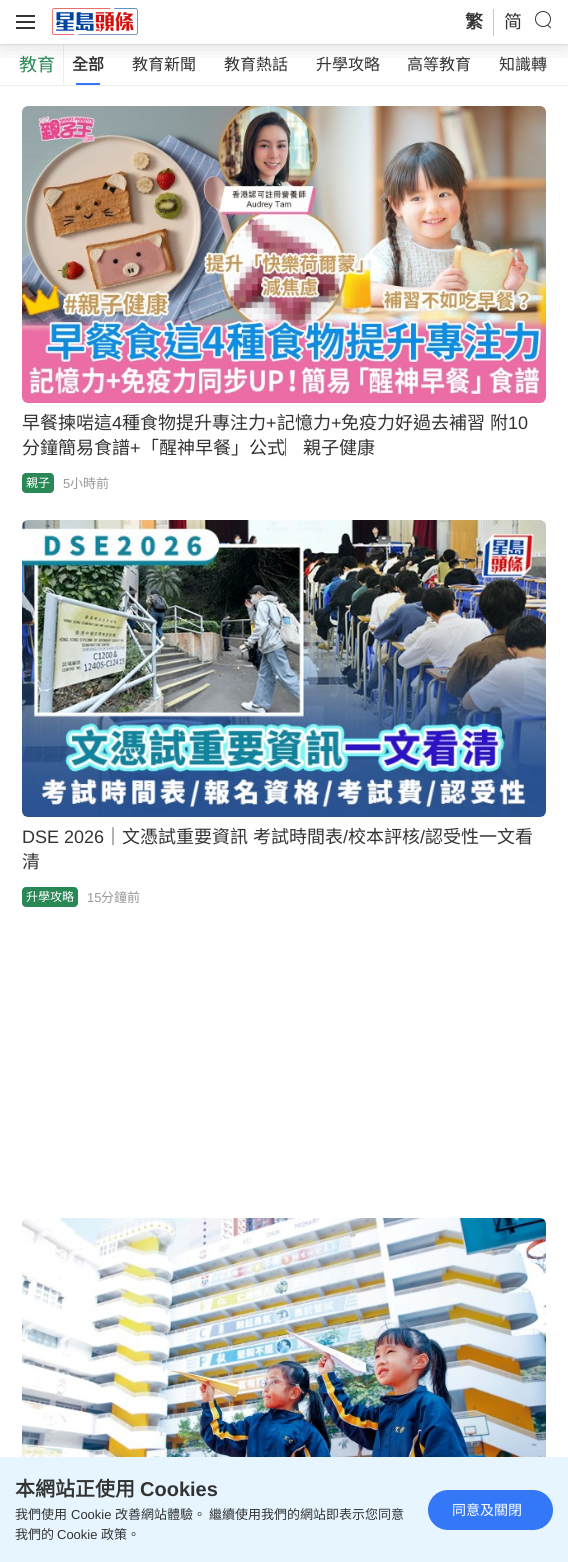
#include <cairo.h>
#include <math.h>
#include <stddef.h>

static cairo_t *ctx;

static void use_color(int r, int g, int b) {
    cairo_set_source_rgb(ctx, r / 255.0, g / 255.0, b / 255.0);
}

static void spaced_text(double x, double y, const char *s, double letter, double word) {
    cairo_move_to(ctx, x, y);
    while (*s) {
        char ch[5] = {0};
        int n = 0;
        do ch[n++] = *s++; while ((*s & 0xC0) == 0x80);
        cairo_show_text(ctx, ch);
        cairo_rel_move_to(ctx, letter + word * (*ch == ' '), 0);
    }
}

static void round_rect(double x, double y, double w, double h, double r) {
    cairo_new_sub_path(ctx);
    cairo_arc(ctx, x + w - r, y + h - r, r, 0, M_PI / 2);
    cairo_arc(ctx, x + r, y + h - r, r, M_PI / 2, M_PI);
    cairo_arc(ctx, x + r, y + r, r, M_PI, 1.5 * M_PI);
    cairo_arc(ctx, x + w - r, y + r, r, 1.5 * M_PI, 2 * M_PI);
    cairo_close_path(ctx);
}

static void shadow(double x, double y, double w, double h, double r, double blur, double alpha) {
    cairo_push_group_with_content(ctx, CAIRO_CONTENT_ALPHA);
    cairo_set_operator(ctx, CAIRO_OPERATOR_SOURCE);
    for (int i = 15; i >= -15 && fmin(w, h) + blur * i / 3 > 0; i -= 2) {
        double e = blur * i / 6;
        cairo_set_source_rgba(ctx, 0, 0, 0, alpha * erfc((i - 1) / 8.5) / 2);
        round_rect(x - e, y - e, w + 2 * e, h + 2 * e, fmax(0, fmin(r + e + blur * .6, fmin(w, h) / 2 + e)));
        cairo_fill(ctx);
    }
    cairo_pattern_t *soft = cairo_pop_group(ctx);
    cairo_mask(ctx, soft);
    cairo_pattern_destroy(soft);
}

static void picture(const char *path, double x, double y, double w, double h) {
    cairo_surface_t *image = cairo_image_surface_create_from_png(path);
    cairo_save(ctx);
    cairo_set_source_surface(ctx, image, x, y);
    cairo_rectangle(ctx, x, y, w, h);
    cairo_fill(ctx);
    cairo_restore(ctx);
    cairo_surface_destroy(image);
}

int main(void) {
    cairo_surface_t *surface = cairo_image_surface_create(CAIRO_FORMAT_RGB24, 568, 1562);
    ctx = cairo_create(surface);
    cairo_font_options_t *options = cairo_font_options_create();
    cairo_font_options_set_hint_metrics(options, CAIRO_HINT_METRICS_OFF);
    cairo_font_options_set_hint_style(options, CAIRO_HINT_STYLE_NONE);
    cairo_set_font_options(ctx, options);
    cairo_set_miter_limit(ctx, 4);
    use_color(255, 255, 255);
    cairo_paint(ctx);
    use_color(237, 237, 237);
    cairo_rectangle(ctx, 0, 44, 568, 1);
    cairo_fill(ctx);
    cairo_rectangle(ctx, 63, 45, 1, 40);
    cairo_fill(ctx);
    cairo_save(ctx);
    cairo_rectangle(ctx, 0, 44, 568, 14);
    cairo_clip(ctx);
    use_color(0, 0, 0);
    shadow(0, 1, 568, 44, 0, 12, 0.15);
    cairo_restore(ctx);
    use_color(51, 51, 51);
    cairo_rectangle(ctx, 16, 15, 19, 2);
    cairo_fill(ctx);
    cairo_rectangle(ctx, 16, 21, 19, 2);
    cairo_fill(ctx);
    cairo_rectangle(ctx, 16, 27, 19, 2);
    cairo_fill(ctx);
    picture("img1.png", 51, 8, 87, 27);
    use_color(199, 199, 199);
    cairo_rectangle(ctx, 493, 9, 1, 27);
    cairo_fill(ctx);
    cairo_select_font_face(ctx, "Noto Sans CJK HK", CAIRO_FONT_SLANT_NORMAL, CAIRO_FONT_WEIGHT_BOLD);
    cairo_set_font_size(ctx, 18);
    use_color(51, 51, 51);
    cairo_move_to(ctx, 465, 28);
    cairo_show_text(ctx, "繁");
    cairo_select_font_face(ctx, "Noto Sans CJK HK", CAIRO_FONT_SLANT_NORMAL, CAIRO_FONT_WEIGHT_NORMAL);
    cairo_move_to(ctx, 504, 28);
    cairo_show_text(ctx, "简");
    picture("img2.png", 535, 11, 16, 18);
    use_color(237, 237, 237);
    cairo_rectangle(ctx, 0, 85, 568, 1);
    cairo_fill(ctx);
    use_color(42, 136, 86);
    cairo_move_to(ctx, 19, 71);
    cairo_show_text(ctx, "教育");
    cairo_select_font_face(ctx, "Noto Sans CJK HK", CAIRO_FONT_SLANT_NORMAL, CAIRO_FONT_WEIGHT_BOLD);
    cairo_set_font_size(ctx, 16);
    use_color(51, 51, 51);
    cairo_move_to(ctx, 72, 70);
    cairo_show_text(ctx, "全部");
    use_color(52, 120, 247);
    cairo_rectangle(ctx, 76, 83, 24, 2);
    cairo_fill(ctx);
    cairo_select_font_face(ctx, "Noto Sans CJK HK", CAIRO_FONT_SLANT_NORMAL, CAIRO_FONT_WEIGHT_NORMAL);
    use_color(51, 51, 51);
    cairo_move_to(ctx, 132, 70);
    cairo_show_text(ctx, "教育新聞");
    cairo_move_to(ctx, 224, 70);
    cairo_show_text(ctx, "教育熱話");
    cairo_move_to(ctx, 316, 70);
    cairo_show_text(ctx, "升學攻略");
    cairo_move_to(ctx, 407, 70);
    cairo_show_text(ctx, "高等教育");
    cairo_move_to(ctx, 499, 70);
    cairo_show_text(ctx, "知識轉");
    picture("img3.png", 22, 106, 524, 297);
    cairo_set_font_size(ctx, 18);
    cairo_move_to(ctx, 22, 429);
    cairo_show_text(ctx, "早餐揀啱這");
    cairo_select_font_face(ctx, "Liberation Sans", CAIRO_FONT_SLANT_NORMAL, CAIRO_FONT_WEIGHT_NORMAL);
    cairo_move_to(ctx, 112, 429);
    cairo_show_text(ctx, "4");
    cairo_select_font_face(ctx, "Noto Sans CJK HK", CAIRO_FONT_SLANT_NORMAL, CAIRO_FONT_WEIGHT_NORMAL);
    cairo_move_to(ctx, 122, 429);
    cairo_show_text(ctx, "種食物提升專注力");
    cairo_select_font_face(ctx, "Liberation Sans", CAIRO_FONT_SLANT_NORMAL, CAIRO_FONT_WEIGHT_NORMAL);
    cairo_move_to(ctx, 266, 429);
    cairo_show_text(ctx, "+");
    cairo_select_font_face(ctx, "Noto Sans CJK HK", CAIRO_FONT_SLANT_NORMAL, CAIRO_FONT_WEIGHT_NORMAL);
    cairo_move_to(ctx, 277, 429);
    cairo_show_text(ctx, "記憶力");
    cairo_select_font_face(ctx, "Liberation Sans", CAIRO_FONT_SLANT_NORMAL, CAIRO_FONT_WEIGHT_NORMAL);
    cairo_move_to(ctx, 331, 429);
    cairo_show_text(ctx, "+");
    cairo_select_font_face(ctx, "Noto Sans CJK HK", CAIRO_FONT_SLANT_NORMAL, CAIRO_FONT_WEIGHT_NORMAL);
    spaced_text(341, 429, "免疫力好過去補習 附", 0, 1);
    cairo_select_font_face(ctx, "Liberation Sans", CAIRO_FONT_SLANT_NORMAL, CAIRO_FONT_WEIGHT_NORMAL);
    cairo_move_to(ctx, 508, 429);
    cairo_show_text(ctx, "10");
    cairo_select_font_face(ctx, "Noto Sans CJK HK", CAIRO_FONT_SLANT_NORMAL, CAIRO_FONT_WEIGHT_NORMAL);
    cairo_move_to(ctx, 22, 454);
    cairo_show_text(ctx, "分鐘簡易食譜");
    cairo_select_font_face(ctx, "Liberation Sans", CAIRO_FONT_SLANT_NORMAL, CAIRO_FONT_WEIGHT_NORMAL);
    cairo_move_to(ctx, 130, 454);
    cairo_show_text(ctx, "+");
    cairo_select_font_face(ctx, "Noto Sans CJK HK", CAIRO_FONT_SLANT_NORMAL, CAIRO_FONT_WEIGHT_NORMAL);
    cairo_move_to(ctx, 141, 454);
    cairo_show_text(ctx, "「醒神早餐」公式︳親子健康");
    use_color(42, 136, 86);
    round_rect(22, 473, 32, 20, 4);
    cairo_fill(ctx);
    cairo_set_font_size(ctx, 12);
    use_color(255, 255, 255);
    cairo_move_to(ctx, 26, 487);
    cairo_show_text(ctx, "親子");
    cairo_select_font_face(ctx, "Liberation Sans", CAIRO_FONT_SLANT_NORMAL, CAIRO_FONT_WEIGHT_NORMAL);
    cairo_set_font_size(ctx, 13);
    use_color(153, 153, 153);
    cairo_move_to(ctx, 63, 488);
    cairo_show_text(ctx, "5");
    cairo_select_font_face(ctx, "Noto Sans CJK HK", CAIRO_FONT_SLANT_NORMAL, CAIRO_FONT_WEIGHT_NORMAL);
    cairo_move_to(ctx, 70, 488);
    cairo_show_text(ctx, "小時前");
    picture("img4.png", 22, 520, 524, 297);
    cairo_select_font_face(ctx, "Liberation Sans", CAIRO_FONT_SLANT_NORMAL, CAIRO_FONT_WEIGHT_NORMAL);
    cairo_set_font_size(ctx, 18);
    use_color(51, 51, 51);
    cairo_move_to(ctx, 22, 843);
    cairo_show_text(ctx, "DSE 2026");
    cairo_select_font_face(ctx, "Noto Sans CJK HK", CAIRO_FONT_SLANT_NORMAL, CAIRO_FONT_WEIGHT_NORMAL);
    cairo_move_to(ctx, 104, 843);
    cairo_show_text(ctx, "｜文憑試重要資訊");
    cairo_move_to(ctx, 253, 843);
    cairo_show_text(ctx, "考試時間表");
    cairo_select_font_face(ctx, "Liberation Sans", CAIRO_FONT_SLANT_NORMAL, CAIRO_FONT_WEIGHT_NORMAL);
    cairo_move_to(ctx, 343, 843);
    cairo_show_text(ctx, "/");
    cairo_select_font_face(ctx, "Noto Sans CJK HK", CAIRO_FONT_SLANT_NORMAL, CAIRO_FONT_WEIGHT_NORMAL);
    cairo_move_to(ctx, 348, 843);
    cairo_show_text(ctx, "校本評核");
    cairo_select_font_face(ctx, "Liberation Sans", CAIRO_FONT_SLANT_NORMAL, CAIRO_FONT_WEIGHT_NORMAL);
    cairo_move_to(ctx, 420, 843);
    cairo_show_text(ctx, "/");
    cairo_select_font_face(ctx, "Noto Sans CJK HK", CAIRO_FONT_SLANT_NORMAL, CAIRO_FONT_WEIGHT_NORMAL);
    cairo_move_to(ctx, 425, 843);
    cairo_show_text(ctx, "認受性一文看");
    cairo_move_to(ctx, 22, 868);
    cairo_show_text(ctx, "清");
    use_color(42, 136, 86);
    round_rect(22, 887, 56, 20, 4);
    cairo_fill(ctx);
    cairo_set_font_size(ctx, 12);
    use_color(255, 255, 255);
    cairo_move_to(ctx, 26, 901);
    cairo_show_text(ctx, "升學攻略");
    cairo_select_font_face(ctx, "Liberation Sans", CAIRO_FONT_SLANT_NORMAL, CAIRO_FONT_WEIGHT_NORMAL);
    cairo_set_font_size(ctx, 13);
    use_color(153, 153, 153);
    cairo_move_to(ctx, 87, 902);
    cairo_show_text(ctx, "15");
    cairo_select_font_face(ctx, "Noto Sans CJK HK", CAIRO_FONT_SLANT_NORMAL, CAIRO_FONT_WEIGHT_NORMAL);
    cairo_move_to(ctx, 101, 902);
    cairo_show_text(ctx, "分鐘前");
    picture("img5.png", 22, 1218, 524, 239);
    use_color(230, 245, 255);
    cairo_rectangle(ctx, 0, 1457, 568, 105);
    cairo_fill(ctx);
    cairo_select_font_face(ctx, "Noto Sans CJK HK", CAIRO_FONT_SLANT_NORMAL, CAIRO_FONT_WEIGHT_BOLD);
    cairo_set_font_size(ctx, 20);
    use_color(51, 51, 51);
    cairo_move_to(ctx, 15, 1496);
    cairo_show_text(ctx, "本網站正使用");
    cairo_select_font_face(ctx, "Liberation Sans", CAIRO_FONT_SLANT_NORMAL, CAIRO_FONT_WEIGHT_BOLD);
    cairo_move_to(ctx, 140, 1496);
    cairo_show_text(ctx, "Cookies");
    cairo_select_font_face(ctx, "Noto Sans CJK HK", CAIRO_FONT_SLANT_NORMAL, CAIRO_FONT_WEIGHT_NORMAL);
    cairo_set_font_size(ctx, 13);
    cairo_move_to(ctx, 15, 1519);
    cairo_show_text(ctx, "我們使用");
    cairo_select_font_face(ctx, "Liberation Sans", CAIRO_FONT_SLANT_NORMAL, CAIRO_FONT_WEIGHT_NORMAL);
    cairo_move_to(ctx, 71, 1519);
    cairo_show_text(ctx, "Cookie");
    cairo_select_font_face(ctx, "Noto Sans CJK HK", CAIRO_FONT_SLANT_NORMAL, CAIRO_FONT_WEIGHT_NORMAL);
    cairo_move_to(ctx, 115, 1519);
    cairo_show_text(ctx, "改善網站體驗。 繼續使用我們的網站即表示您同意");
    cairo_move_to(ctx, 15, 1539);
    cairo_show_text(ctx, "我們的");
    cairo_select_font_face(ctx, "Liberation Sans", CAIRO_FONT_SLANT_NORMAL, CAIRO_FONT_WEIGHT_NORMAL);
    cairo_move_to(ctx, 57, 1539);
    cairo_show_text(ctx, "Cookie");
    cairo_select_font_face(ctx, "Noto Sans CJK HK", CAIRO_FONT_SLANT_NORMAL, CAIRO_FONT_WEIGHT_NORMAL);
    cairo_move_to(ctx, 101, 1539);
    cairo_show_text(ctx, "政策。");
    use_color(52, 120, 247);
    round_rect(428, 1490, 125, 40, 20);
    cairo_fill(ctx);
    cairo_set_font_size(ctx, 14);
    use_color(255, 255, 255);
    cairo_move_to(ctx, 452, 1515);
    cairo_show_text(ctx, "同意及關閉");
    cairo_surface_write_to_png(surface, "result.png");
    cairo_font_options_destroy(options);
    cairo_destroy(ctx);
    cairo_surface_destroy(surface);
    return 0;
}
